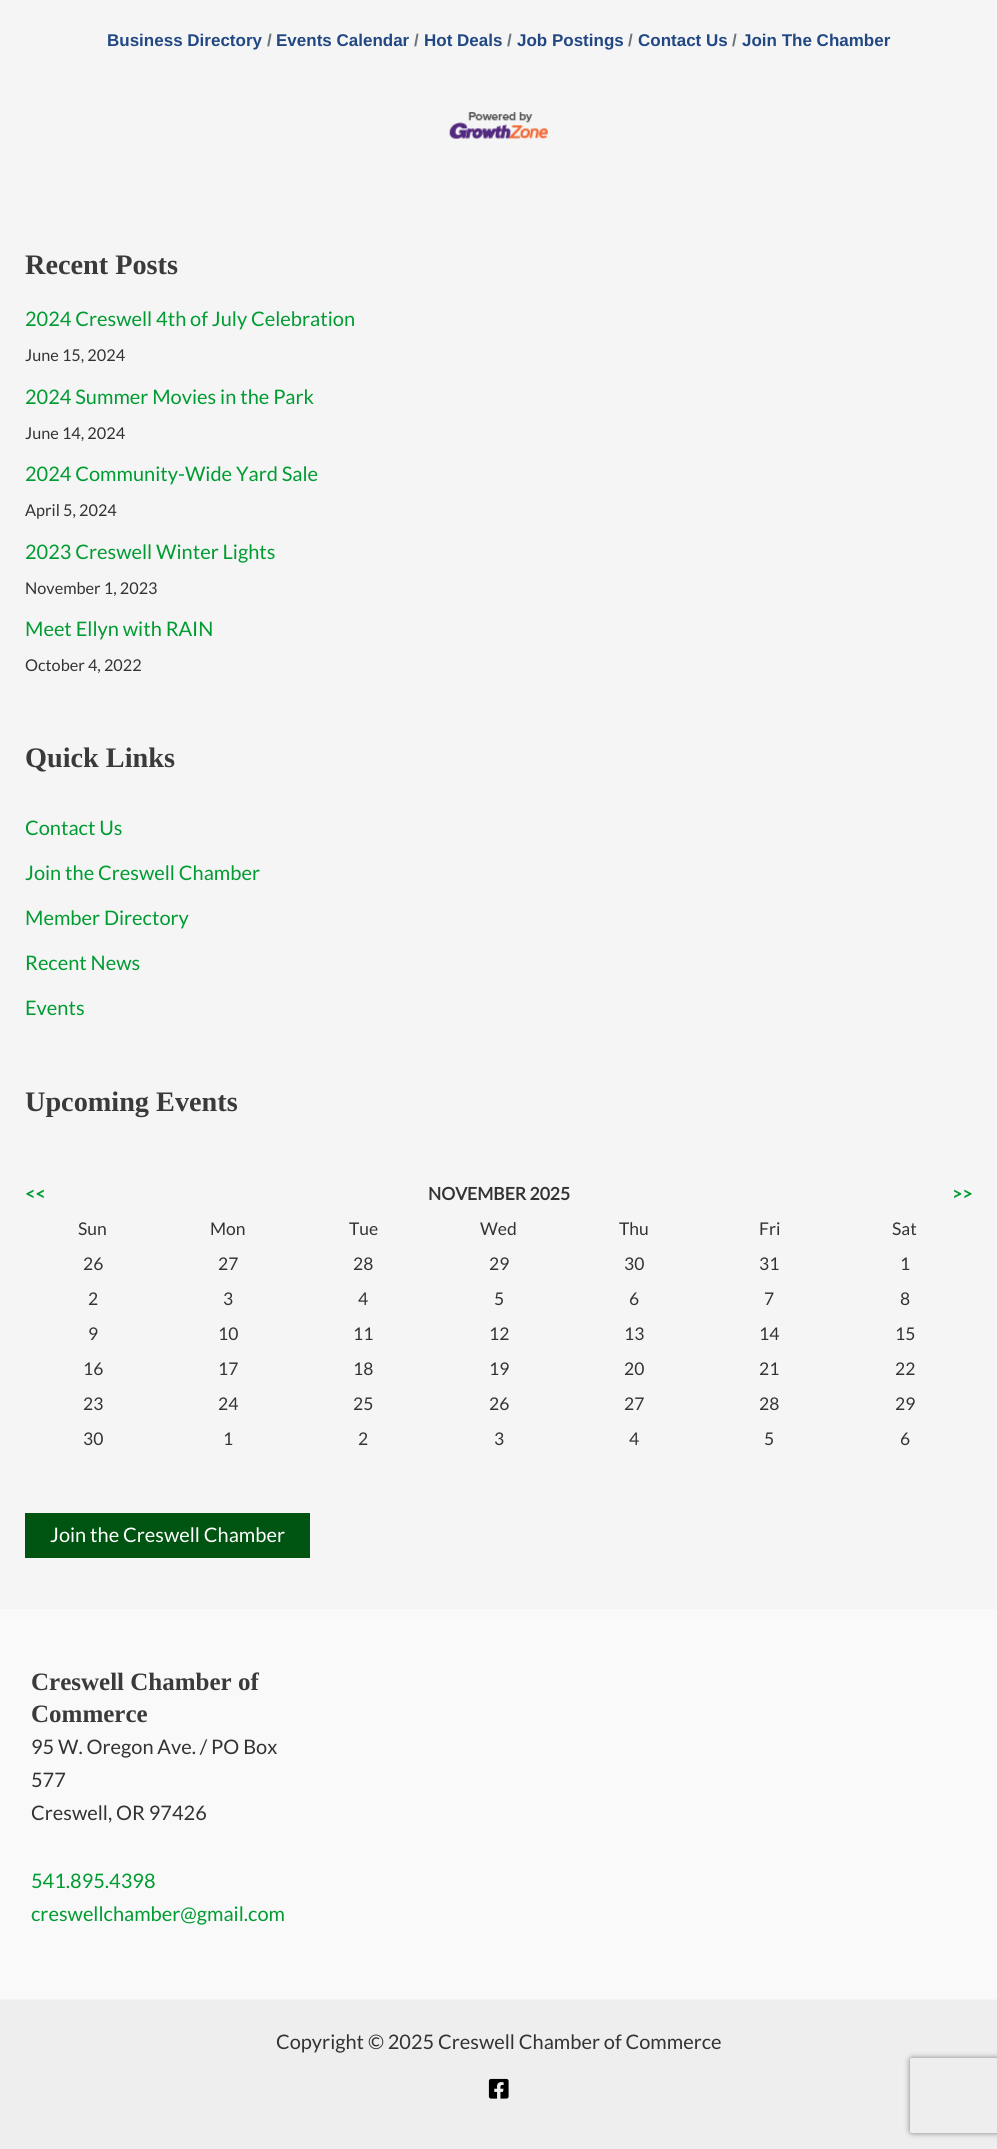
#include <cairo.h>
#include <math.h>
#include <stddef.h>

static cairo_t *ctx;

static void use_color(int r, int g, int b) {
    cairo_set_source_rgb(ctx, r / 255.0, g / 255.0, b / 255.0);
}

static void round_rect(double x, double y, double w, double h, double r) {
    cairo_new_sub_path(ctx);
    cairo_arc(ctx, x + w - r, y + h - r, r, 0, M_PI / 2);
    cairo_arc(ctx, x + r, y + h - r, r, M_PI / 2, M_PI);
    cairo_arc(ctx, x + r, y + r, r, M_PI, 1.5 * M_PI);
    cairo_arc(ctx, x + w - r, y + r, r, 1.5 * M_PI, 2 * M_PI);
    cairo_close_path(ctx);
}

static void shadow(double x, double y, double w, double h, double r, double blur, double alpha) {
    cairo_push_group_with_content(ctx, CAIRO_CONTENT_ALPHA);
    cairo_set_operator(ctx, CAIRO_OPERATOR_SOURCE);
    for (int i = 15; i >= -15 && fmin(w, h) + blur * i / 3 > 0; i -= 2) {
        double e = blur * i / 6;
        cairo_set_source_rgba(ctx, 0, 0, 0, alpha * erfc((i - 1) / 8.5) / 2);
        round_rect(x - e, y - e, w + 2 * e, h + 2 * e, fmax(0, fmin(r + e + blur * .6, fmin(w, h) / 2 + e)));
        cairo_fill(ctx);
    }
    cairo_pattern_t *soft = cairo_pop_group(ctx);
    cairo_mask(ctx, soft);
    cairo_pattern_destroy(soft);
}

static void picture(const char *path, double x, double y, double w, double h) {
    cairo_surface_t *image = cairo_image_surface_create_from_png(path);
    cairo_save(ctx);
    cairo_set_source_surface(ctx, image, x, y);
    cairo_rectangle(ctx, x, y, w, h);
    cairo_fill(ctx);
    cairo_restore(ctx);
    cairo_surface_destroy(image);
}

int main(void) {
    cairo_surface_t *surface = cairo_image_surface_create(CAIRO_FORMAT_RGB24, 997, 2149);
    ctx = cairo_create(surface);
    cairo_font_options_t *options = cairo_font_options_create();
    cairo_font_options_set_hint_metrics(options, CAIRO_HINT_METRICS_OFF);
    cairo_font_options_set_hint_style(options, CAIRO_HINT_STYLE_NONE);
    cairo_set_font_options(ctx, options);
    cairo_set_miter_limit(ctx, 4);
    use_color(245, 245, 245);
    cairo_paint(ctx);
    cairo_select_font_face(ctx, "Liberation Sans", CAIRO_FONT_SLANT_NORMAL, CAIRO_FONT_WEIGHT_BOLD);
    cairo_set_font_size(ctx, 17);
    use_color(34, 72, 132);
    cairo_move_to(ctx, 107, 46);
    cairo_show_text(ctx, "Business Directory");
    use_color(108, 117, 125);
    cairo_move_to(ctx, 267, 46);
    cairo_show_text(ctx, "/");
    use_color(34, 72, 132);
    cairo_move_to(ctx, 276, 46);
    cairo_show_text(ctx, "Events Calendar");
    use_color(108, 117, 125);
    cairo_move_to(ctx, 414, 46);
    cairo_show_text(ctx, "/");
    use_color(34, 72, 132);
    cairo_move_to(ctx, 424, 46);
    cairo_show_text(ctx, "Hot Deals");
    use_color(108, 117, 125);
    cairo_move_to(ctx, 507, 46);
    cairo_show_text(ctx, "/");
    use_color(34, 72, 132);
    cairo_move_to(ctx, 517, 46);
    cairo_show_text(ctx, "Job Postings");
    use_color(108, 117, 125);
    cairo_move_to(ctx, 628, 46);
    cairo_show_text(ctx, "/");
    use_color(34, 72, 132);
    cairo_move_to(ctx, 638, 46);
    cairo_show_text(ctx, "Contact Us");
    use_color(108, 117, 125);
    cairo_move_to(ctx, 732, 46);
    cairo_show_text(ctx, "/");
    use_color(34, 72, 132);
    cairo_move_to(ctx, 742, 46);
    cairo_show_text(ctx, "Join The Chamber");
    picture("img1.png", 449, 112, 99, 27);
    cairo_select_font_face(ctx, "Liberation Serif", CAIRO_FONT_SLANT_NORMAL, CAIRO_FONT_WEIGHT_BOLD);
    cairo_set_font_size(ctx, 28.25);
    use_color(58, 58, 58);
    cairo_move_to(ctx, 25, 274);
    cairo_show_text(ctx, "Recent Posts");
    cairo_select_font_face(ctx, "Lato", CAIRO_FONT_SLANT_NORMAL, CAIRO_FONT_WEIGHT_NORMAL);
    cairo_set_font_size(ctx, 20);
    use_color(0, 155, 49);
    cairo_move_to(ctx, 25, 326);
    cairo_show_text(ctx, "2024 Creswell 4th of July Celebration");
    cairo_set_font_size(ctx, 16.25);
    use_color(51, 51, 51);
    cairo_move_to(ctx, 25, 361);
    cairo_show_text(ctx, "June 15, 2024");
    cairo_set_font_size(ctx, 20);
    use_color(0, 155, 49);
    cairo_move_to(ctx, 25, 404);
    cairo_show_text(ctx, "2024 Summer Movies in the Park");
    cairo_set_font_size(ctx, 16.25);
    use_color(51, 51, 51);
    cairo_move_to(ctx, 25, 439);
    cairo_show_text(ctx, "June 14, 2024");
    cairo_set_font_size(ctx, 20);
    use_color(0, 155, 49);
    cairo_move_to(ctx, 25, 481);
    cairo_show_text(ctx, "2024 Community-Wide Yard Sale");
    cairo_set_font_size(ctx, 16.25);
    use_color(51, 51, 51);
    cairo_move_to(ctx, 25, 516);
    cairo_show_text(ctx, "April 5, 2024");
    cairo_set_font_size(ctx, 20);
    use_color(0, 155, 49);
    cairo_move_to(ctx, 25, 559);
    cairo_show_text(ctx, "2023 Creswell Winter Lights");
    cairo_set_font_size(ctx, 16.25);
    use_color(51, 51, 51);
    cairo_move_to(ctx, 25, 594);
    cairo_show_text(ctx, "November 1, 2023");
    cairo_set_font_size(ctx, 20);
    use_color(0, 155, 49);
    cairo_move_to(ctx, 25, 636);
    cairo_show_text(ctx, "Meet Ellyn with RAIN");
    cairo_set_font_size(ctx, 16.25);
    use_color(51, 51, 51);
    cairo_move_to(ctx, 25, 671);
    cairo_show_text(ctx, "October 4, 2022");
    cairo_select_font_face(ctx, "Liberation Serif", CAIRO_FONT_SLANT_NORMAL, CAIRO_FONT_WEIGHT_BOLD);
    cairo_set_font_size(ctx, 28.25);
    use_color(58, 58, 58);
    cairo_move_to(ctx, 25, 767);
    cairo_show_text(ctx, "Quick Links");
    cairo_select_font_face(ctx, "Lato", CAIRO_FONT_SLANT_NORMAL, CAIRO_FONT_WEIGHT_NORMAL);
    cairo_set_font_size(ctx, 20);
    use_color(0, 155, 49);
    cairo_move_to(ctx, 25, 835);
    cairo_show_text(ctx, "Contact Us");
    cairo_move_to(ctx, 25, 880);
    cairo_show_text(ctx, "Join the Creswell Chamber");
    cairo_move_to(ctx, 25, 925);
    cairo_show_text(ctx, "Member Directory");
    cairo_move_to(ctx, 25, 970);
    cairo_show_text(ctx, "Recent News");
    cairo_move_to(ctx, 25, 1015);
    cairo_show_text(ctx, "Events");
    cairo_select_font_face(ctx, "Liberation Serif", CAIRO_FONT_SLANT_NORMAL, CAIRO_FONT_WEIGHT_BOLD);
    cairo_set_font_size(ctx, 28.25);
    use_color(58, 58, 58);
    cairo_move_to(ctx, 25, 1111);
    cairo_show_text(ctx, "Upcoming Events");
    cairo_select_font_face(ctx, "Lato", CAIRO_FONT_SLANT_NORMAL, CAIRO_FONT_WEIGHT_BOLD);
    cairo_set_font_size(ctx, 17.5);
    use_color(0, 155, 49);
    cairo_move_to(ctx, 25, 1200);
    cairo_show_text(ctx, "<<");
    use_color(51, 51, 51);
    cairo_move_to(ctx, 428, 1200);
    cairo_show_text(ctx, "NOVEMBER 2025");
    use_color(0, 155, 49);
    cairo_move_to(ctx, 952, 1200);
    cairo_show_text(ctx, ">>");
    cairo_select_font_face(ctx, "Lato", CAIRO_FONT_SLANT_NORMAL, CAIRO_FONT_WEIGHT_NORMAL);
    use_color(51, 51, 51);
    cairo_move_to(ctx, 78, 1235);
    cairo_show_text(ctx, "Sun");
    cairo_move_to(ctx, 210, 1235);
    cairo_show_text(ctx, "Mon");
    cairo_move_to(ctx, 349, 1235);
    cairo_show_text(ctx, "Tue");
    cairo_move_to(ctx, 480, 1235);
    cairo_show_text(ctx, "Wed");
    cairo_move_to(ctx, 619, 1235);
    cairo_show_text(ctx, "Thu");
    cairo_move_to(ctx, 759, 1235);
    cairo_show_text(ctx, "Fri");
    cairo_move_to(ctx, 892, 1235);
    cairo_show_text(ctx, "Sat");
    cairo_move_to(ctx, 83, 1270);
    cairo_show_text(ctx, "26");
    cairo_move_to(ctx, 218, 1270);
    cairo_show_text(ctx, "27");
    cairo_move_to(ctx, 353, 1270);
    cairo_show_text(ctx, "28");
    cairo_move_to(ctx, 489, 1270);
    cairo_show_text(ctx, "29");
    cairo_move_to(ctx, 624, 1270);
    cairo_show_text(ctx, "30");
    cairo_move_to(ctx, 759, 1270);
    cairo_show_text(ctx, "31");
    cairo_move_to(ctx, 900, 1270);
    cairo_show_text(ctx, "1");
    cairo_move_to(ctx, 88, 1305);
    cairo_show_text(ctx, "2");
    cairo_move_to(ctx, 223, 1305);
    cairo_show_text(ctx, "3");
    cairo_move_to(ctx, 358, 1305);
    cairo_show_text(ctx, "4");
    cairo_move_to(ctx, 494, 1305);
    cairo_show_text(ctx, "5");
    cairo_move_to(ctx, 629, 1305);
    cairo_show_text(ctx, "6");
    cairo_move_to(ctx, 764, 1305);
    cairo_show_text(ctx, "7");
    cairo_move_to(ctx, 900, 1305);
    cairo_show_text(ctx, "8");
    cairo_move_to(ctx, 88, 1340);
    cairo_show_text(ctx, "9");
    cairo_move_to(ctx, 218, 1340);
    cairo_show_text(ctx, "10");
    cairo_move_to(ctx, 353, 1340);
    cairo_show_text(ctx, "11");
    cairo_move_to(ctx, 489, 1340);
    cairo_show_text(ctx, "12");
    cairo_move_to(ctx, 624, 1340);
    cairo_show_text(ctx, "13");
    cairo_move_to(ctx, 759, 1340);
    cairo_show_text(ctx, "14");
    cairo_move_to(ctx, 895, 1340);
    cairo_show_text(ctx, "15");
    cairo_move_to(ctx, 83, 1375);
    cairo_show_text(ctx, "16");
    cairo_move_to(ctx, 218, 1375);
    cairo_show_text(ctx, "17");
    cairo_move_to(ctx, 353, 1375);
    cairo_show_text(ctx, "18");
    cairo_move_to(ctx, 489, 1375);
    cairo_show_text(ctx, "19");
    cairo_move_to(ctx, 624, 1375);
    cairo_show_text(ctx, "20");
    cairo_move_to(ctx, 759, 1375);
    cairo_show_text(ctx, "21");
    cairo_move_to(ctx, 895, 1375);
    cairo_show_text(ctx, "22");
    cairo_move_to(ctx, 83, 1410);
    cairo_show_text(ctx, "23");
    cairo_move_to(ctx, 218, 1410);
    cairo_show_text(ctx, "24");
    cairo_move_to(ctx, 353, 1410);
    cairo_show_text(ctx, "25");
    cairo_move_to(ctx, 489, 1410);
    cairo_show_text(ctx, "26");
    cairo_move_to(ctx, 624, 1410);
    cairo_show_text(ctx, "27");
    cairo_move_to(ctx, 759, 1410);
    cairo_show_text(ctx, "28");
    cairo_move_to(ctx, 895, 1410);
    cairo_show_text(ctx, "29");
    cairo_move_to(ctx, 83, 1445);
    cairo_show_text(ctx, "30");
    cairo_move_to(ctx, 223, 1445);
    cairo_show_text(ctx, "1");
    cairo_move_to(ctx, 358, 1445);
    cairo_show_text(ctx, "2");
    cairo_move_to(ctx, 494, 1445);
    cairo_show_text(ctx, "3");
    cairo_move_to(ctx, 629, 1445);
    cairo_show_text(ctx, "4");
    cairo_move_to(ctx, 764, 1445);
    cairo_show_text(ctx, "5");
    cairo_move_to(ctx, 900, 1445);
    cairo_show_text(ctx, "6");
    use_color(0, 84, 18);
    cairo_rectangle(ctx, 25, 1513, 285, 45);
    cairo_fill(ctx);
    cairo_set_font_size(ctx, 20);
    use_color(255, 255, 255);
    cairo_move_to(ctx, 50, 1542);
    cairo_show_text(ctx, "Join the Creswell Chamber");
    use_color(249, 249, 249);
    cairo_rectangle(ctx, 0, 1609, 997, 390);
    cairo_fill(ctx);
    use_color(242, 245, 247);
    cairo_rectangle(ctx, 0, 1608, 997, 1);
    cairo_fill(ctx);
    cairo_select_font_face(ctx, "Liberation Serif", CAIRO_FONT_SLANT_NORMAL, CAIRO_FONT_WEIGHT_BOLD);
    cairo_set_font_size(ctx, 25);
    use_color(58, 58, 58);
    cairo_move_to(ctx, 31, 1690);
    cairo_show_text(ctx, "Creswell Chamber of");
    cairo_move_to(ctx, 31, 1722);
    cairo_show_text(ctx, "Commerce");
    cairo_select_font_face(ctx, "Lato", CAIRO_FONT_SLANT_NORMAL, CAIRO_FONT_WEIGHT_NORMAL);
    cairo_set_font_size(ctx, 20);
    use_color(51, 51, 51);
    cairo_move_to(ctx, 31, 1754);
    cairo_show_text(ctx, "95 W. Oregon Ave. / PO Box");
    cairo_move_to(ctx, 31, 1787);
    cairo_show_text(ctx, "577");
    cairo_move_to(ctx, 31, 1820);
    cairo_show_text(ctx, "Creswell, OR 97426");
    use_color(0, 155, 49);
    cairo_move_to(ctx, 31, 1888);
    cairo_show_text(ctx, "541.895.4398");
    cairo_move_to(ctx, 31, 1921);
    cairo_show_text(ctx, "creswellchamber@gmail.com");
    use_color(238, 238, 238);
    cairo_rectangle(ctx, 0, 2000, 997, 149);
    cairo_fill(ctx);
    use_color(242, 245, 247);
    cairo_rectangle(ctx, 0, 1999, 997, 1);
    cairo_fill(ctx);
    use_color(51, 51, 51);
    cairo_move_to(ctx, 276, 2049);
    cairo_show_text(ctx, "Copyright © 2025 Creswell Chamber of Commerce");
    picture("img2.png", 488, 2078, 21, 21);
    cairo_save(ctx);
    cairo_set_fill_rule(ctx, CAIRO_FILL_RULE_EVEN_ODD);
    cairo_new_path(ctx);
    cairo_move_to(ctx, 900, 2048);
    cairo_line_to(ctx, 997, 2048);
    cairo_line_to(ctx, 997, 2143);
    cairo_line_to(ctx, 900, 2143);
    cairo_close_path(ctx);
    cairo_move_to(ctx, 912.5, 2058);
    cairo_line_to(ctx, 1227.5, 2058);
    cairo_curve_to(ctx, 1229, 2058, 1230, 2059, 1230, 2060.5);
    cairo_line_to(ctx, 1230, 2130.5);
    cairo_curve_to(ctx, 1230, 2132, 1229, 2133, 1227.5, 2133);
    cairo_line_to(ctx, 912.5, 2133);
    cairo_curve_to(ctx, 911, 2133, 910, 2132, 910, 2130.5);
    cairo_line_to(ctx, 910, 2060.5);
    cairo_curve_to(ctx, 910, 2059, 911, 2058, 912.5, 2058);
    cairo_close_path(ctx);
    cairo_clip(ctx);
    use_color(128, 128, 128);
    shadow(910, 2058, 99, 75, 2.5, 3, 1);
    cairo_restore(ctx);
    cairo_surface_write_to_png(surface, "result.png");
    cairo_font_options_destroy(options);
    cairo_destroy(ctx);
    cairo_surface_destroy(surface);
    return 0;
}
